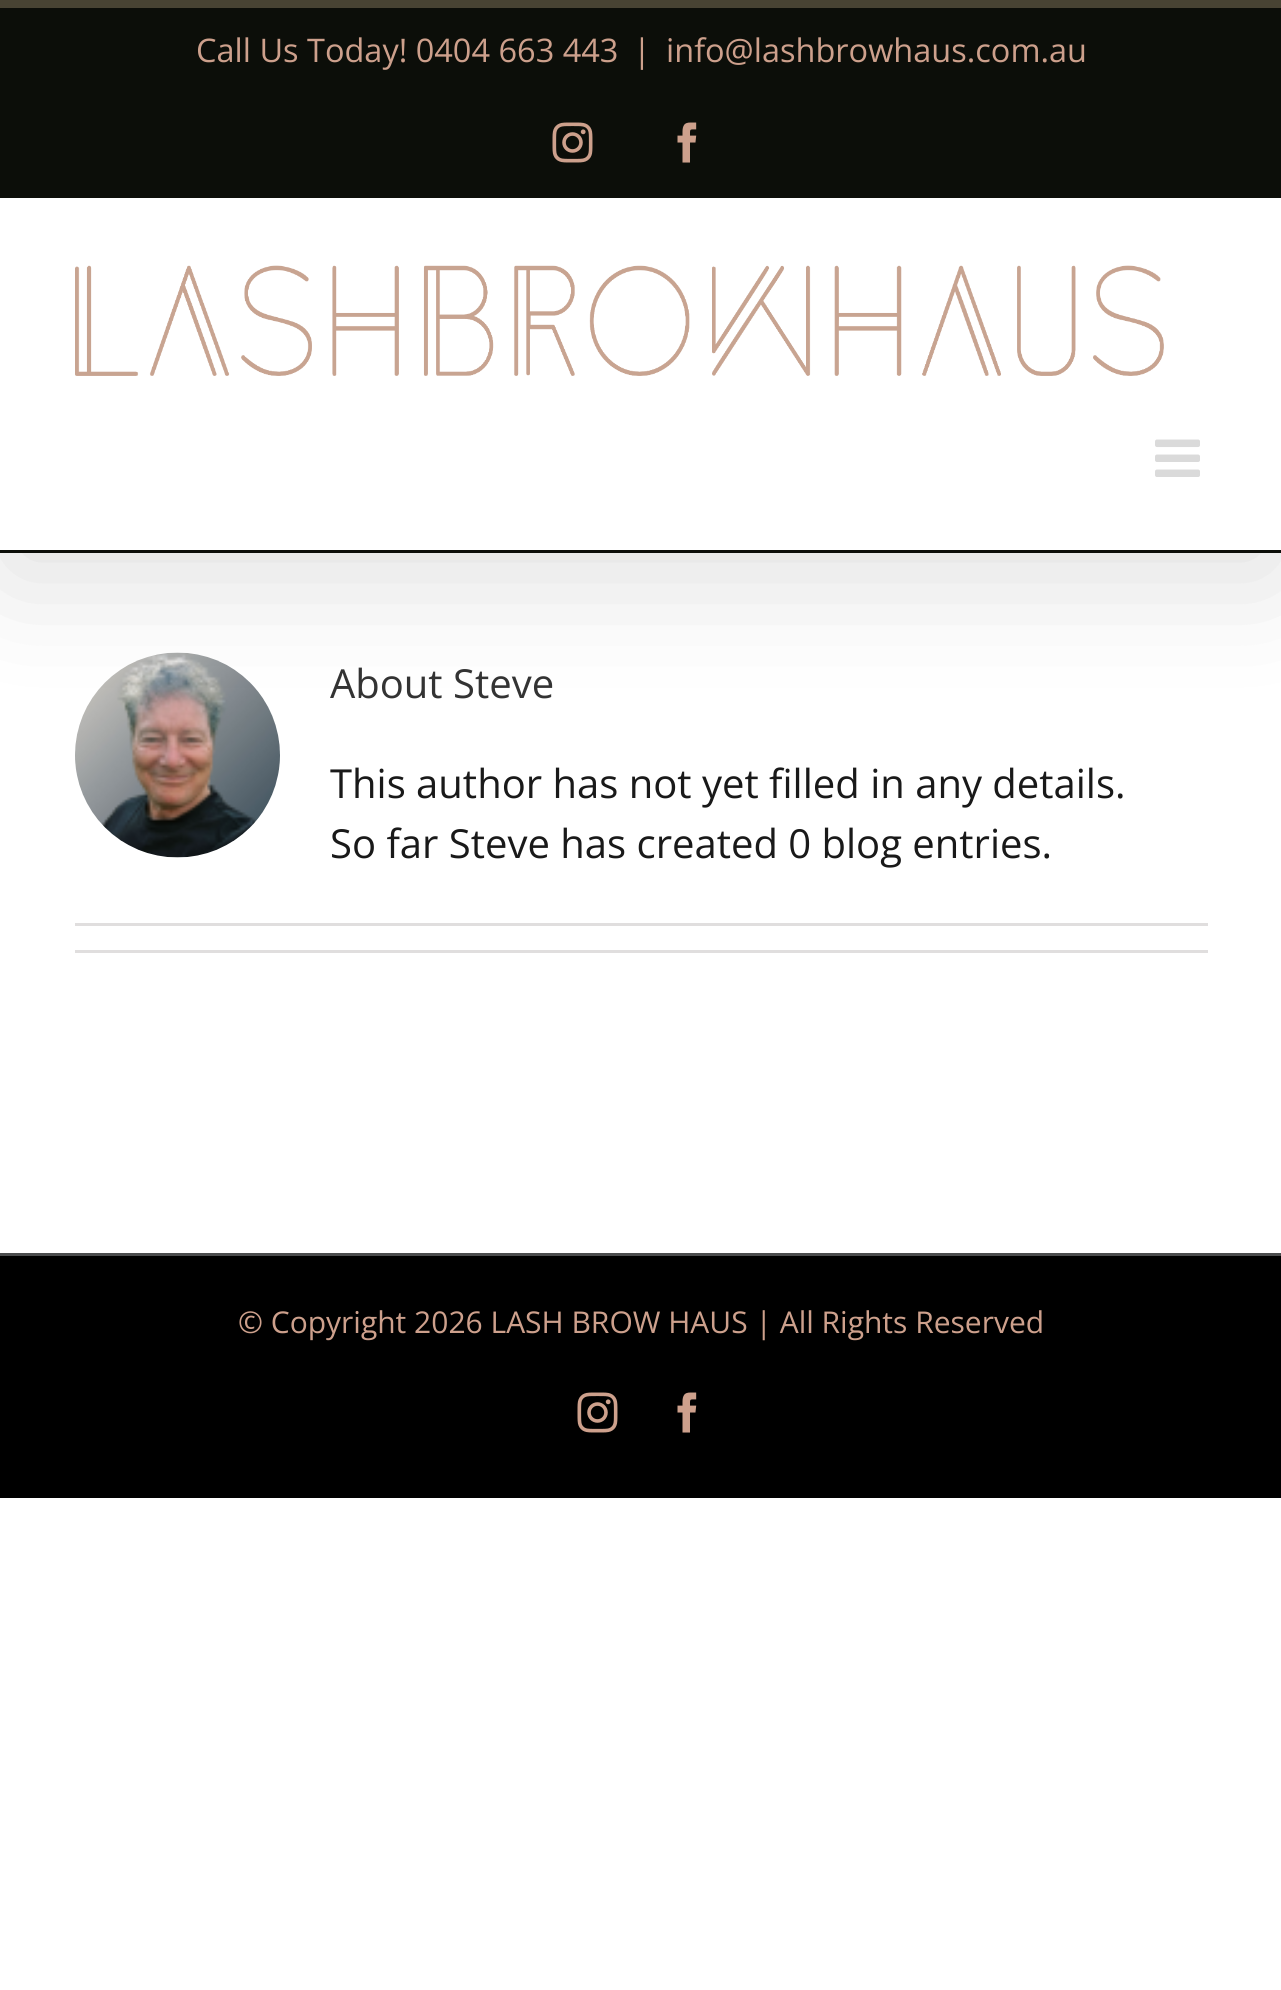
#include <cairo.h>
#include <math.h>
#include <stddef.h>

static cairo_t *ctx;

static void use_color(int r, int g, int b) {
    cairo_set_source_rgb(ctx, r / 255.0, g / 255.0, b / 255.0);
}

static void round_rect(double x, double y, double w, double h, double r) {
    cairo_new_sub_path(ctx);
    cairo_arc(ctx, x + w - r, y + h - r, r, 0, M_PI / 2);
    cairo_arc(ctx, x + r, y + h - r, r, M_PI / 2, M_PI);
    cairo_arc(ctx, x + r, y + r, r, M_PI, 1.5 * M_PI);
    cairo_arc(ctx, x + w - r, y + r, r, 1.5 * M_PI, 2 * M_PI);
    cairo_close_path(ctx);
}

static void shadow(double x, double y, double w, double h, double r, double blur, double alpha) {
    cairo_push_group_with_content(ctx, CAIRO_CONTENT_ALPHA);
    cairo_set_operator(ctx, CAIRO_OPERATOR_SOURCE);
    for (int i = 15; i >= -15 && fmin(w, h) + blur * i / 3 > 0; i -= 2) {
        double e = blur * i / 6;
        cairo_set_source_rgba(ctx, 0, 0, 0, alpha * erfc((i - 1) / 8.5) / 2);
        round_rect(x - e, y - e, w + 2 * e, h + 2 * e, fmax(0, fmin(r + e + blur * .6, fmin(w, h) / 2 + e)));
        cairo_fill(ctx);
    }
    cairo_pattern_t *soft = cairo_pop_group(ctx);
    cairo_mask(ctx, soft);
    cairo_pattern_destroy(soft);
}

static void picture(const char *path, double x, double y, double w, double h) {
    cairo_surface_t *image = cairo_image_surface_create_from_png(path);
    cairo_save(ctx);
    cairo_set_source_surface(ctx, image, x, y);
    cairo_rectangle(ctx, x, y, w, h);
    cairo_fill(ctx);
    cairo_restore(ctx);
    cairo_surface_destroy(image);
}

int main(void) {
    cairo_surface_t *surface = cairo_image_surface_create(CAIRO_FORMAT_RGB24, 1281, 1990);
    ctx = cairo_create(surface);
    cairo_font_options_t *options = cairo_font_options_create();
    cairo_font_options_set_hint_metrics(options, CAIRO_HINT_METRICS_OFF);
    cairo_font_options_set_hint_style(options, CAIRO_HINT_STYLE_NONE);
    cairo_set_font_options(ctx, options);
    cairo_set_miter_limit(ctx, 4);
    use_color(255, 255, 255);
    cairo_paint(ctx);
    picture("img5.png", 75, 652, 205, 206);
    use_color(0, 0, 0);
    shadow(5, 30, 1273, 543, 0, 62.5, 0.14);
    use_color(12, 14, 9);
    cairo_rectangle(ctx, 0, 8, 1281, 190);
    cairo_fill(ctx);
    use_color(72, 67, 51);
    cairo_rectangle(ctx, 0, 0, 1281, 8);
    cairo_fill(ctx);
    cairo_select_font_face(ctx, "Open Sans", CAIRO_FONT_SLANT_NORMAL, CAIRO_FONT_WEIGHT_NORMAL);
    cairo_set_font_size(ctx, 32.5);
    use_color(205, 160, 140);
    cairo_move_to(ctx, 196, 62);
    cairo_show_text(ctx, "Call Us Today! 0404 663 443");
    cairo_move_to(ctx, 633, 62);
    cairo_show_text(ctx, "|");
    cairo_move_to(ctx, 666, 62);
    cairo_show_text(ctx, "info@lashbrowhaus.com.au");
    picture("img1.png", 552, 122, 41, 41);
    picture("img2.png", 677, 122, 20, 41);
    use_color(255, 255, 255);
    cairo_rectangle(ctx, 0, 198, 1281, 352);
    cairo_fill(ctx);
    use_color(12, 14, 9);
    cairo_rectangle(ctx, 0, 550, 1281, 3);
    cairo_fill(ctx);
    picture("img3.png", 75, 265, 1089, 111);
    picture("img4.png", 1155, 439, 45, 38);
    cairo_set_font_size(ctx, 40);
    use_color(51, 51, 51);
    cairo_move_to(ctx, 330, 698);
    cairo_show_text(ctx, "About Steve");
    use_color(25, 25, 25);
    cairo_move_to(ctx, 330, 798);
    cairo_show_text(ctx, "This author has not yet filled in any details.");
    cairo_move_to(ctx, 330, 858);
    cairo_show_text(ctx, "So far Steve has created 0 blog entries.");
    use_color(224, 222, 222);
    cairo_rectangle(ctx, 75, 923, 1133, 3);
    cairo_fill(ctx);
    cairo_rectangle(ctx, 75, 950, 1133, 3);
    cairo_fill(ctx);
    use_color(0, 0, 0);
    cairo_rectangle(ctx, 0, 1256, 1281, 242);
    cairo_fill(ctx);
    use_color(75, 76, 77);
    cairo_rectangle(ctx, 0, 1253, 1281, 3);
    cairo_fill(ctx);
    cairo_set_font_size(ctx, 30);
    use_color(205, 160, 140);
    cairo_move_to(ctx, 238, 1333);
    cairo_show_text(ctx, "© Copyright 2026 LASH BROW HAUS | All Rights Reserved");
    picture("img6.png", 577, 1392, 41, 41);
    picture("img7.png", 677, 1392, 20, 41);
    cairo_surface_write_to_png(surface, "result.png");
    cairo_font_options_destroy(options);
    cairo_destroy(ctx);
    cairo_surface_destroy(surface);
    return 0;
}
